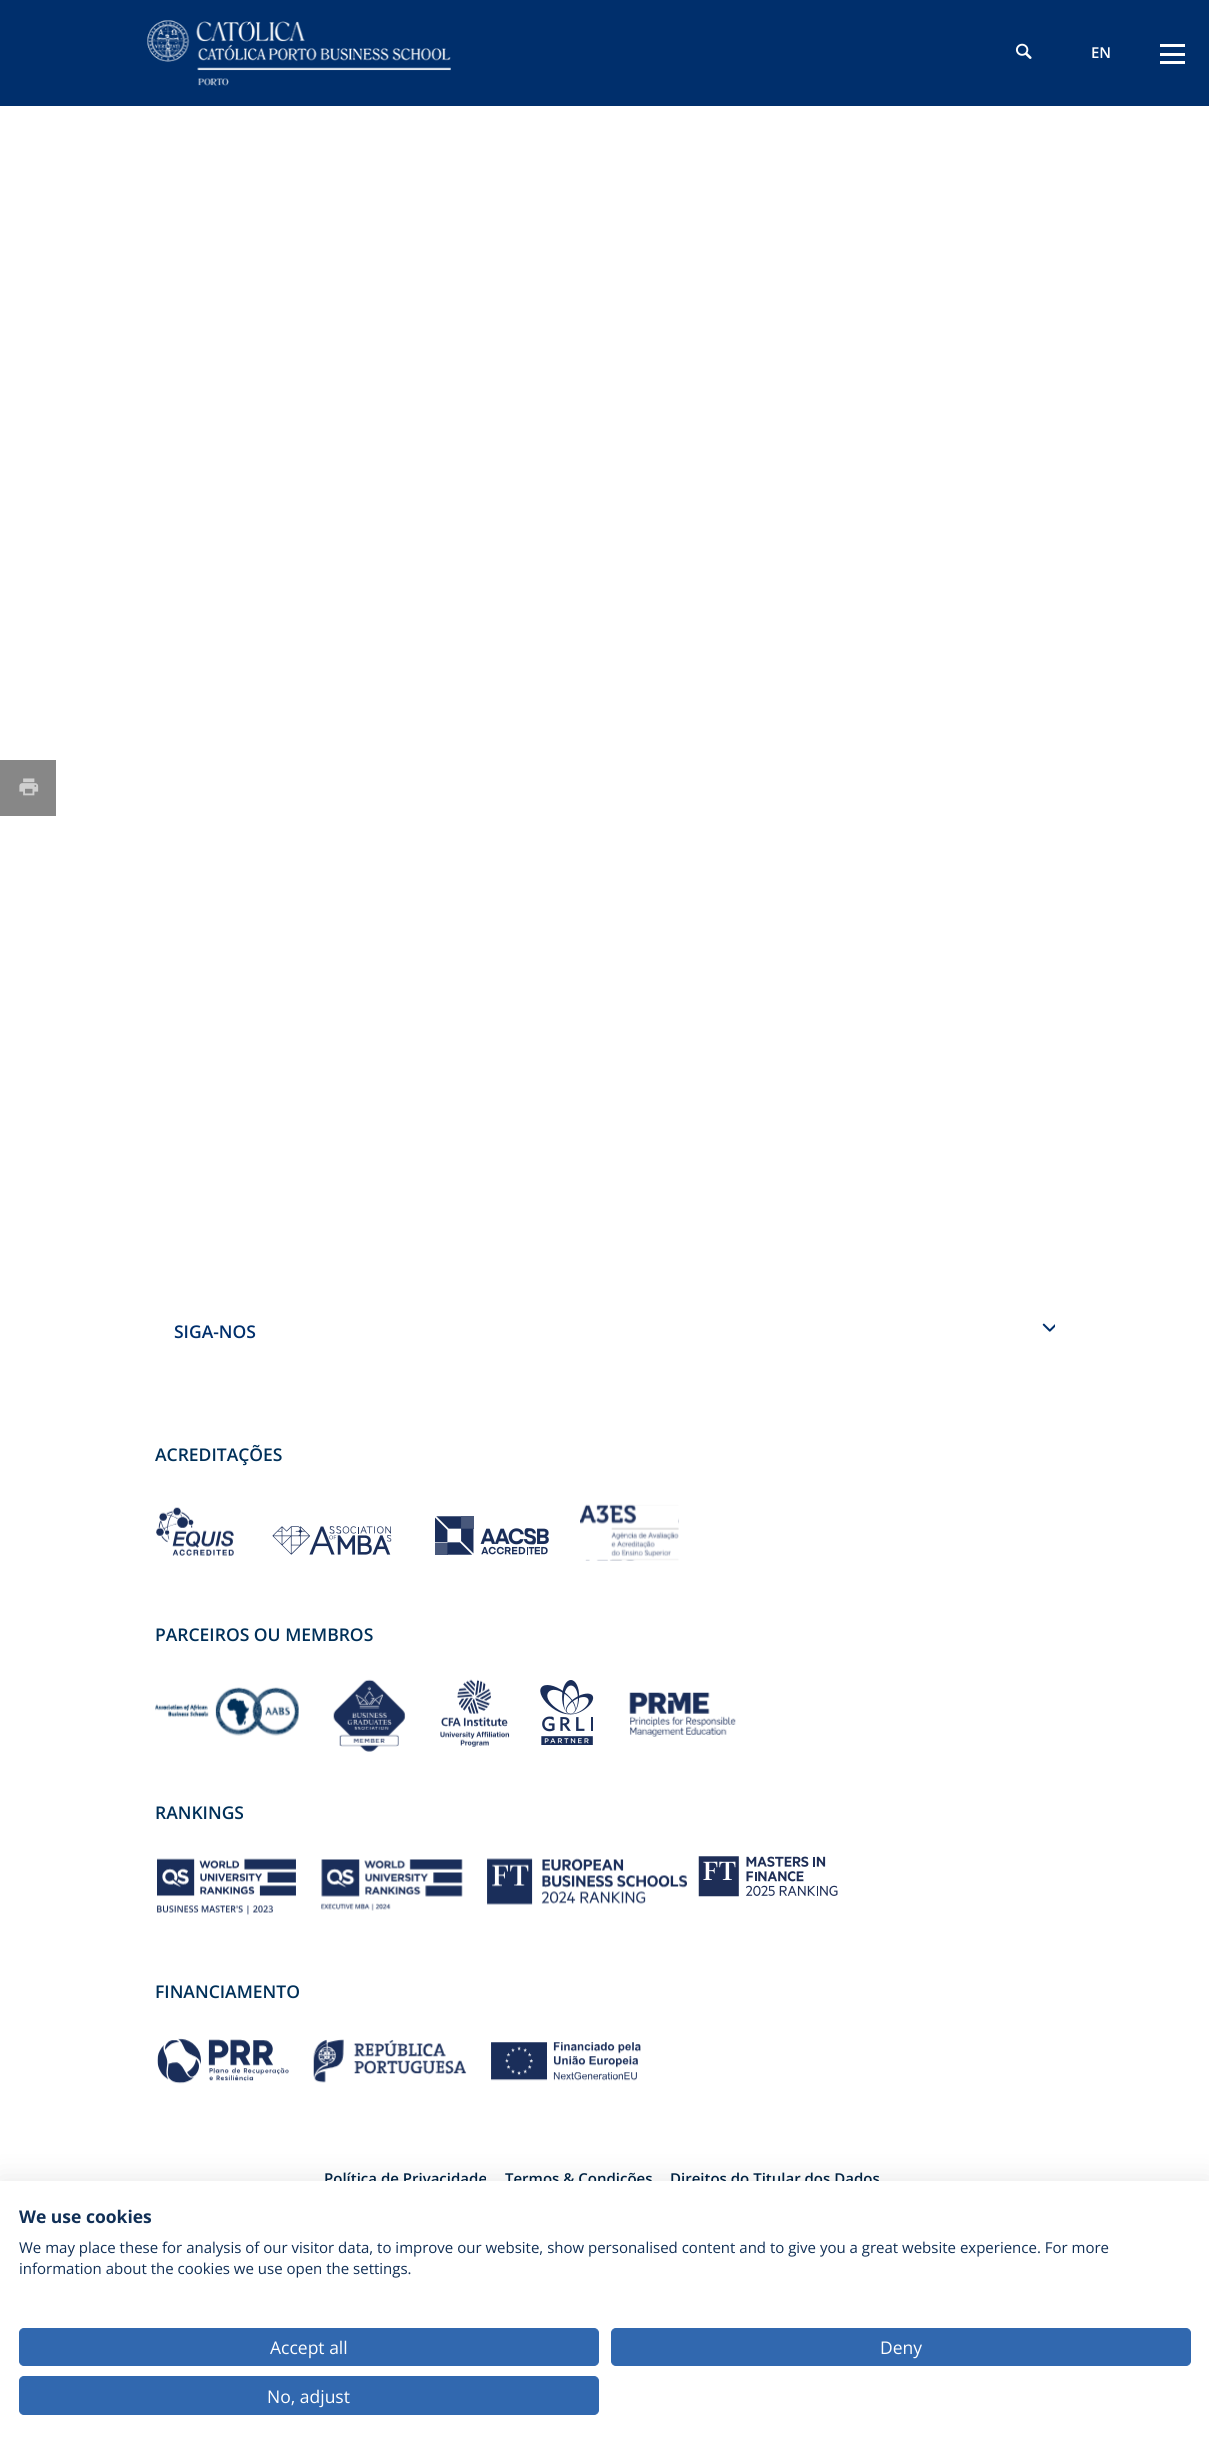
#include <cairo.h>
#include <math.h>
#include <stddef.h>

static cairo_t *ctx;

static void use_color(int r, int g, int b) {
    cairo_set_source_rgb(ctx, r / 255.0, g / 255.0, b / 255.0);
}

static void round_rect(double x, double y, double w, double h, double r) {
    cairo_new_sub_path(ctx);
    cairo_arc(ctx, x + w - r, y + h - r, r, 0, M_PI / 2);
    cairo_arc(ctx, x + r, y + h - r, r, M_PI / 2, M_PI);
    cairo_arc(ctx, x + r, y + r, r, M_PI, 1.5 * M_PI);
    cairo_arc(ctx, x + w - r, y + r, r, 1.5 * M_PI, 2 * M_PI);
    cairo_close_path(ctx);
}

static void shadow(double x, double y, double w, double h, double r, double blur, double alpha) {
    cairo_push_group_with_content(ctx, CAIRO_CONTENT_ALPHA);
    cairo_set_operator(ctx, CAIRO_OPERATOR_SOURCE);
    for (int i = 15; i >= -15 && fmin(w, h) + blur * i / 3 > 0; i -= 2) {
        double e = blur * i / 6;
        cairo_set_source_rgba(ctx, 0, 0, 0, alpha * erfc((i - 1) / 8.5) / 2);
        round_rect(x - e, y - e, w + 2 * e, h + 2 * e, fmax(0, fmin(r + e + blur * .6, fmin(w, h) / 2 + e)));
        cairo_fill(ctx);
    }
    cairo_pattern_t *soft = cairo_pop_group(ctx);
    cairo_mask(ctx, soft);
    cairo_pattern_destroy(soft);
}

static void picture(const char *path, double x, double y, double w, double h) {
    cairo_surface_t *image = cairo_image_surface_create_from_png(path);
    cairo_save(ctx);
    cairo_set_source_surface(ctx, image, x, y);
    cairo_rectangle(ctx, x, y, w, h);
    cairo_fill(ctx);
    cairo_restore(ctx);
    cairo_surface_destroy(image);
}

int main(void) {
    cairo_surface_t *surface = cairo_image_surface_create(CAIRO_FORMAT_RGB24, 1209, 2448);
    ctx = cairo_create(surface);
    cairo_font_options_t *options = cairo_font_options_create();
    cairo_font_options_set_hint_metrics(options, CAIRO_HINT_METRICS_OFF);
    cairo_font_options_set_hint_style(options, CAIRO_HINT_STYLE_NONE);
    cairo_set_font_options(ctx, options);
    cairo_set_miter_limit(ctx, 4);
    use_color(255, 255, 255);
    cairo_paint(ctx);
    use_color(0, 47, 108);
    cairo_rectangle(ctx, 0, 0, 1209, 106);
    cairo_fill(ctx);
    picture("img1.png", 147, 20, 304, 66);
    picture("img2.png", 1015, 43, 17, 16);
    cairo_select_font_face(ctx, "Open Sans SemiBold", CAIRO_FONT_SLANT_NORMAL, CAIRO_FONT_WEIGHT_NORMAL);
    cairo_set_font_size(ctx, 15);
    use_color(255, 255, 255);
    cairo_move_to(ctx, 1091, 58);
    cairo_show_text(ctx, "EN");
    cairo_rectangle(ctx, 1160, 44, 25, 3);
    cairo_fill(ctx);
    cairo_rectangle(ctx, 1160, 53, 25, 3);
    cairo_fill(ctx);
    cairo_rectangle(ctx, 1160, 61, 25, 3);
    cairo_fill(ctx);
    use_color(135, 135, 135);
    cairo_rectangle(ctx, 0, 760, 56, 56);
    cairo_fill(ctx);
    picture("img3.png", 19, 778, 20, 18);
    cairo_set_font_size(ctx, 17.5);
    use_color(0, 47, 108);
    cairo_move_to(ctx, 174, 1338);
    cairo_show_text(ctx, "SIGA-NOS");
    picture("img4.png", 1042, 1323, 13, 9);
    use_color(0, 48, 89);
    cairo_move_to(ctx, 155, 1461);
    cairo_show_text(ctx, "ACREDITAÇÕES");
    picture("img5.png", 156, 1507, 78, 49);
    picture("img6.png", 272, 1526, 120, 29);
    picture("img7.png", 435, 1516, 114, 39);
    picture("img8.png", 580, 1504, 99, 57);
    cairo_move_to(ctx, 155, 1641);
    cairo_show_text(ctx, "PARCEIROS OU MEMBROS");
    picture("img9.png", 155, 1687, 144, 49);
    picture("img10.png", 333, 1679, 73, 73);
    picture("img11.png", 440, 1679, 70, 68);
    picture("img12.png", 540, 1680, 54, 65);
    picture("img13.png", 629, 1692, 107, 45);
    cairo_move_to(ctx, 155, 1819);
    cairo_show_text(ctx, "RANKINGS");
    picture("img14.png", 157, 1858, 139, 57);
    picture("img15.png", 321, 1859, 142, 52);
    picture("img16.png", 487, 1858, 200, 47);
    picture("img17.png", 698, 1856, 140, 41);
    cairo_move_to(ctx, 155, 1998);
    cairo_show_text(ctx, "FINANCIAMENTO");
    picture("img18.png", 157, 2038, 132, 46);
    picture("img19.png", 313, 2039, 154, 44);
    picture("img20.png", 491, 2042, 150, 39);
    cairo_set_font_size(ctx, 15);
    use_color(0, 35, 68);
    cairo_move_to(ctx, 324, 2184);
    cairo_show_text(ctx, "Política de Privacidade");
    cairo_move_to(ctx, 505, 2184);
    cairo_show_text(ctx, "Termos & Condições");
    cairo_move_to(ctx, 670, 2184);
    cairo_show_text(ctx, "Direitos do Titular dos Dados");
    use_color(0, 0, 0);
    shadow(0, 2181, 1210, 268, 0, 15, 0.1);
    use_color(255, 255, 255);
    cairo_rectangle(ctx, 0, 2181, 1209, 267);
    cairo_fill(ctx);
    cairo_select_font_face(ctx, "Open Sans", CAIRO_FONT_SLANT_NORMAL, CAIRO_FONT_WEIGHT_BOLD);
    cairo_set_font_size(ctx, 17.5);
    use_color(16, 47, 86);
    cairo_move_to(ctx, 19, 2223);
    cairo_show_text(ctx, "We use cookies");
    cairo_select_font_face(ctx, "Open Sans", CAIRO_FONT_SLANT_NORMAL, CAIRO_FONT_WEIGHT_NORMAL);
    cairo_set_font_size(ctx, 15);
    cairo_move_to(ctx, 19, 2253);
    cairo_show_text(ctx, "We may place these for analysis of our visitor data, to improve our website, show personalised content and to give you a great website experience. For more");
    cairo_move_to(ctx, 19, 2274);
    cairo_show_text(ctx, "information about the cookies we use open the settings.");
    use_color(49, 104, 175);
    round_rect(19.5, 2328.5, 579, 37, 4.5);
    cairo_fill_preserve(ctx);
    cairo_set_line_width(ctx, 1);
    cairo_stroke(ctx);
    cairo_set_font_size(ctx, 17.5);
    use_color(255, 255, 255);
    cairo_move_to(ctx, 270, 2354);
    cairo_show_text(ctx, "Accept all");
    use_color(49, 104, 175);
    round_rect(611.5, 2328.5, 579, 37, 4.5);
    cairo_fill_preserve(ctx);
    cairo_stroke(ctx);
    use_color(255, 255, 255);
    cairo_move_to(ctx, 880, 2354);
    cairo_show_text(ctx, "Deny");
    use_color(49, 104, 175);
    round_rect(19.5, 2376.5, 579, 38, 4.5);
    cairo_fill_preserve(ctx);
    cairo_stroke(ctx);
    use_color(255, 255, 255);
    cairo_move_to(ctx, 267, 2403);
    cairo_show_text(ctx, "No, adjust");
    cairo_surface_write_to_png(surface, "result.png");
    cairo_font_options_destroy(options);
    cairo_destroy(ctx);
    cairo_surface_destroy(surface);
    return 0;
}
